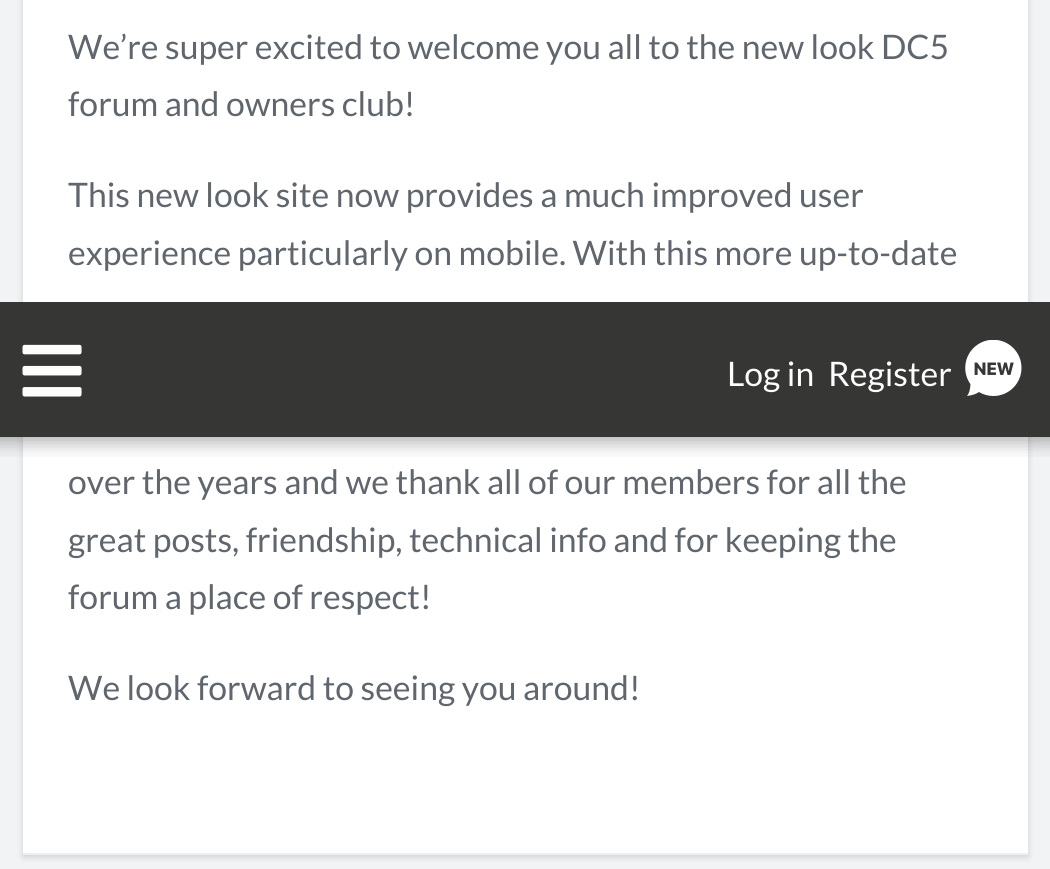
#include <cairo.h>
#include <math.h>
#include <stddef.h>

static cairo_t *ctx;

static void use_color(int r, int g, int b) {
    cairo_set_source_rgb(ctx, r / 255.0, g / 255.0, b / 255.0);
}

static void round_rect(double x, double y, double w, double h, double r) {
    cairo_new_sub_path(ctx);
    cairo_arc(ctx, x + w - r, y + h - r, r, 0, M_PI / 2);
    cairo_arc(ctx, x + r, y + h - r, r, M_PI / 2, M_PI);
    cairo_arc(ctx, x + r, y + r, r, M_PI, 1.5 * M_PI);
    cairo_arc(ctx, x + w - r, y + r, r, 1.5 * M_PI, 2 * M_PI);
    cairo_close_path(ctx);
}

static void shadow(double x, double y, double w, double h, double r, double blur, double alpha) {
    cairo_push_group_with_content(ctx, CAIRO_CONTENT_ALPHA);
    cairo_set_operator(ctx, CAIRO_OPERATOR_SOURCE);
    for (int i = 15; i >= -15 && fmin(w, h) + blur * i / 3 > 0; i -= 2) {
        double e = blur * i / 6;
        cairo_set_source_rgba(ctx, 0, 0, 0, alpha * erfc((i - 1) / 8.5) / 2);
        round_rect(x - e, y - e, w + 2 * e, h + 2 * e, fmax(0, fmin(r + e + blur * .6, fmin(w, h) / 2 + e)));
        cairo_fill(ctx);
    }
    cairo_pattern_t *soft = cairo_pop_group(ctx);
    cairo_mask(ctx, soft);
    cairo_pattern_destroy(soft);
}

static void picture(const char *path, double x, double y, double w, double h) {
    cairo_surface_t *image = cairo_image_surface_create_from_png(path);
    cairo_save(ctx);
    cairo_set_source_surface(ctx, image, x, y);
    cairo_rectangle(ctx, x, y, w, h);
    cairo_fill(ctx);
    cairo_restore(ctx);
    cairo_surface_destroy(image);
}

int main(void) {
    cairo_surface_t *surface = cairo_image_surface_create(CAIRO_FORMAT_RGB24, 1050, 869);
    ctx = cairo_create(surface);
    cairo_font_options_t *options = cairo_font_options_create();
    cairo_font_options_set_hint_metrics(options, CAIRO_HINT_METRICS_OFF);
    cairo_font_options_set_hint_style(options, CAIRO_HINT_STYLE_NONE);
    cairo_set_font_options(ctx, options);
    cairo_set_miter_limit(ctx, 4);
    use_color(241, 243, 244);
    cairo_paint(ctx);
    use_color(0, 0, 0);
    shadow(23, -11, 1005, 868, 0, 3.5, 0.15);
    use_color(255, 255, 255);
    cairo_rectangle(ctx, 23, 0, 1005, 853);
    cairo_fill(ctx);
    use_color(237, 240, 240);
    cairo_rectangle(ctx, 23, 853, 1005, 2);
    cairo_fill(ctx);
    cairo_select_font_face(ctx, "Lato", CAIRO_FONT_SLANT_NORMAL, CAIRO_FONT_WEIGHT_NORMAL);
    cairo_set_font_size(ctx, 33.75);
    use_color(96, 102, 109);
    cairo_move_to(ctx, 68, 59);
    cairo_show_text(ctx, "We’re super excited to welcome you all to the new look DC5");
    cairo_move_to(ctx, 68, 116);
    cairo_show_text(ctx, "forum and owners club!");
    cairo_move_to(ctx, 68, 207);
    cairo_show_text(ctx, "This new look site now provides a much improved user");
    cairo_move_to(ctx, 68, 265);
    cairo_show_text(ctx, "experience particularly on mobile. With this more up-to-date");
    cairo_move_to(ctx, 68, 494);
    cairo_show_text(ctx, "over the years and we thank all of our members for all the");
    cairo_move_to(ctx, 68, 552);
    cairo_show_text(ctx, "great posts, friendship, technical info and for keeping the");
    cairo_move_to(ctx, 68, 609);
    cairo_show_text(ctx, "forum a place of respect!");
    cairo_move_to(ctx, 68, 700);
    cairo_show_text(ctx, "We look forward to seeing you around!");
    cairo_save(ctx);
    cairo_rectangle(ctx, 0, 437, 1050, 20);
    cairo_clip(ctx);
    use_color(0, 0, 0);
    shadow(-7, -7, 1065, 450, 0, 9, 0.3);
    cairo_restore(ctx);
    use_color(54, 54, 53);
    cairo_rectangle(ctx, 0, 302, 1050, 135);
    cairo_fill(ctx);
    picture("img1.png", 22, 344, 60, 53);
    use_color(253, 253, 253);
    cairo_move_to(ctx, 727, 386);
    cairo_show_text(ctx, "Log in");
    cairo_move_to(ctx, 828, 386);
    cairo_show_text(ctx, "Register");
    picture("img2.png", 965, 340, 57, 56);
    cairo_surface_write_to_png(surface, "result.png");
    cairo_font_options_destroy(options);
    cairo_destroy(ctx);
    cairo_surface_destroy(surface);
    return 0;
}
